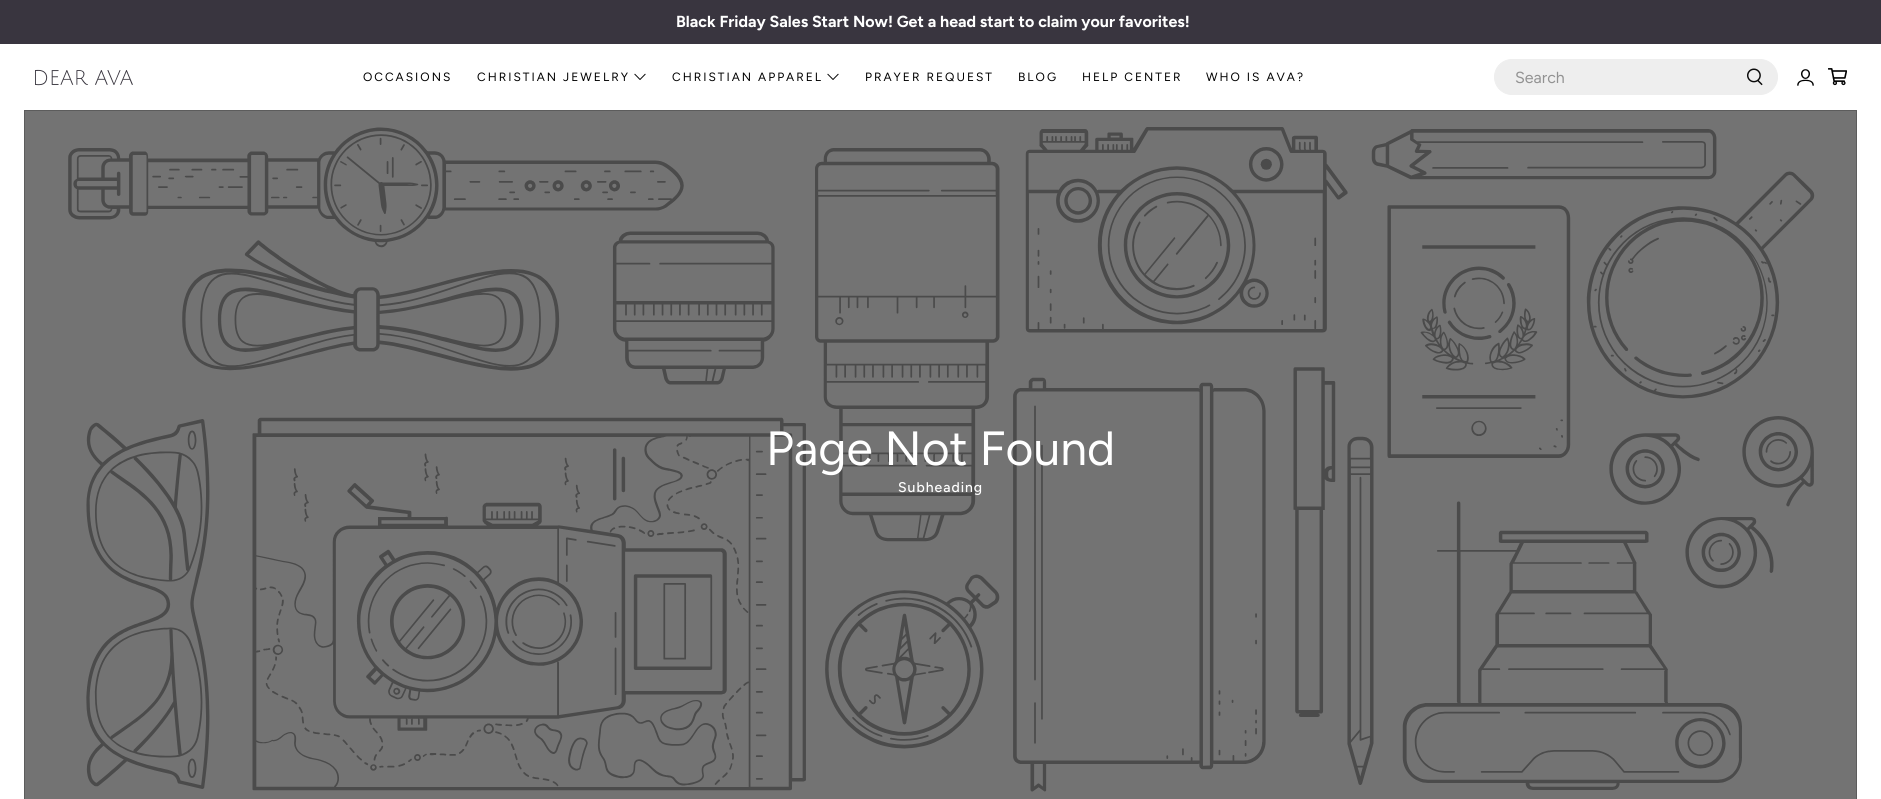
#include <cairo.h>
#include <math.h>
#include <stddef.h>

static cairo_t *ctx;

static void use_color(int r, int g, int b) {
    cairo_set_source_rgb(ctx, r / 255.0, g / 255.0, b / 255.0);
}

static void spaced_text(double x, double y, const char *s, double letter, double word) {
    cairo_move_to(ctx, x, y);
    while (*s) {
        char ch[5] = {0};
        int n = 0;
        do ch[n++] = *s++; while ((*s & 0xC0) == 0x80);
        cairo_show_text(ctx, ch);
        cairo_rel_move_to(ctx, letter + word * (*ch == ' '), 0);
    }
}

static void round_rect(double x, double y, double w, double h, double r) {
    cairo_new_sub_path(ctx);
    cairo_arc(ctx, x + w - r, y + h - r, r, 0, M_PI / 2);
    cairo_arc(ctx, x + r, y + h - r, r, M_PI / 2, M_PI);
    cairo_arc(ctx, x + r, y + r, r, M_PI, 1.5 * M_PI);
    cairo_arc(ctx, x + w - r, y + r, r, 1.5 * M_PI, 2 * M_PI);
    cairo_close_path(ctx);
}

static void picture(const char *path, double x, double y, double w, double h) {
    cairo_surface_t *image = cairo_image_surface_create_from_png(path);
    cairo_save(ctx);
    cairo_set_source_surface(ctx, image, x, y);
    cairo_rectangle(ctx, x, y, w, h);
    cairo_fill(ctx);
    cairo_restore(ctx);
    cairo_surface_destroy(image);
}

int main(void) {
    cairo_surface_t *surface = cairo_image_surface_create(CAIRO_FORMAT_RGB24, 1881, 799);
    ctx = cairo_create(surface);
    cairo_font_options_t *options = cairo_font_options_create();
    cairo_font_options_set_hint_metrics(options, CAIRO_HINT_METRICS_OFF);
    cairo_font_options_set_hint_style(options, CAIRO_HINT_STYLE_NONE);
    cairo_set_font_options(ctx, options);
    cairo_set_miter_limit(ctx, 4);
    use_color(255, 255, 255);
    cairo_paint(ctx);
    use_color(57, 53, 63);
    cairo_rectangle(ctx, 0, 0, 1881, 44);
    cairo_fill(ctx);
    cairo_select_font_face(ctx, "Figtree", CAIRO_FONT_SLANT_NORMAL, CAIRO_FONT_WEIGHT_BOLD);
    cairo_set_font_size(ctx, 16);
    use_color(255, 255, 255);
    cairo_move_to(ctx, 676, 27);
    cairo_show_text(ctx, "Black Friday Sales Start Now! Get a head start to claim your favorites!");
    picture("img1.png", 35, 69, 98, 17);
    cairo_select_font_face(ctx, "Figtree", CAIRO_FONT_SLANT_NORMAL, CAIRO_FONT_WEIGHT_NORMAL);
    cairo_set_font_size(ctx, 12);
    use_color(0, 0, 0);
    spaced_text(363, 81, "OCCASIONS", 2, 0);
    spaced_text(477, 81, "CHRISTIAN JEWELRY", 2, 0);
    picture("img2.png", 634, 73, 12, 7);
    spaced_text(672, 81, "CHRISTIAN APPAREL", 2, 0);
    picture("img2.png", 827, 73, 12, 7);
    spaced_text(865, 81, "PRAYER REQUEST", 2, 0);
    spaced_text(1018, 81, "BLOG", 2, 0);
    spaced_text(1082, 81, "HELP CENTER", 2, 0);
    spaced_text(1206, 81, "WHO IS AVA?", 2, 0);
    use_color(238, 238, 238);
    round_rect(1494.5, 59.5, 283, 35, 17.5);
    cairo_fill_preserve(ctx);
    cairo_set_line_width(ctx, 1);
    cairo_stroke(ctx);
    cairo_set_font_size(ctx, 16);
    use_color(146, 146, 146);
    cairo_move_to(ctx, 1515, 83);
    cairo_show_text(ctx, "Search");
    picture("img3.png", 1747, 68, 16, 18);
    picture("img4.png", 1797, 69, 17, 17);
    picture("img5.png", 1828, 68, 19, 18);
    use_color(115, 115, 115);
    cairo_rectangle(ctx, 24.5, 110.5, 1832, 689);
    cairo_fill_preserve(ctx);
    use_color(92, 92, 92);
    cairo_stroke(ctx);
    picture("img6.png", 68, 127, 1747, 665);
    cairo_set_font_size(ctx, 48);
    use_color(255, 255, 255);
    cairo_move_to(ctx, 766, 465);
    cairo_show_text(ctx, "Page Not Found");
    cairo_select_font_face(ctx, "Figtree Medium", CAIRO_FONT_SLANT_NORMAL, CAIRO_FONT_WEIGHT_NORMAL);
    cairo_set_font_size(ctx, 14);
    spaced_text(898, 492, "Subheading", 1, 0);
    cairo_surface_write_to_png(surface, "result.png");
    cairo_font_options_destroy(options);
    cairo_destroy(ctx);
    cairo_surface_destroy(surface);
    return 0;
}
